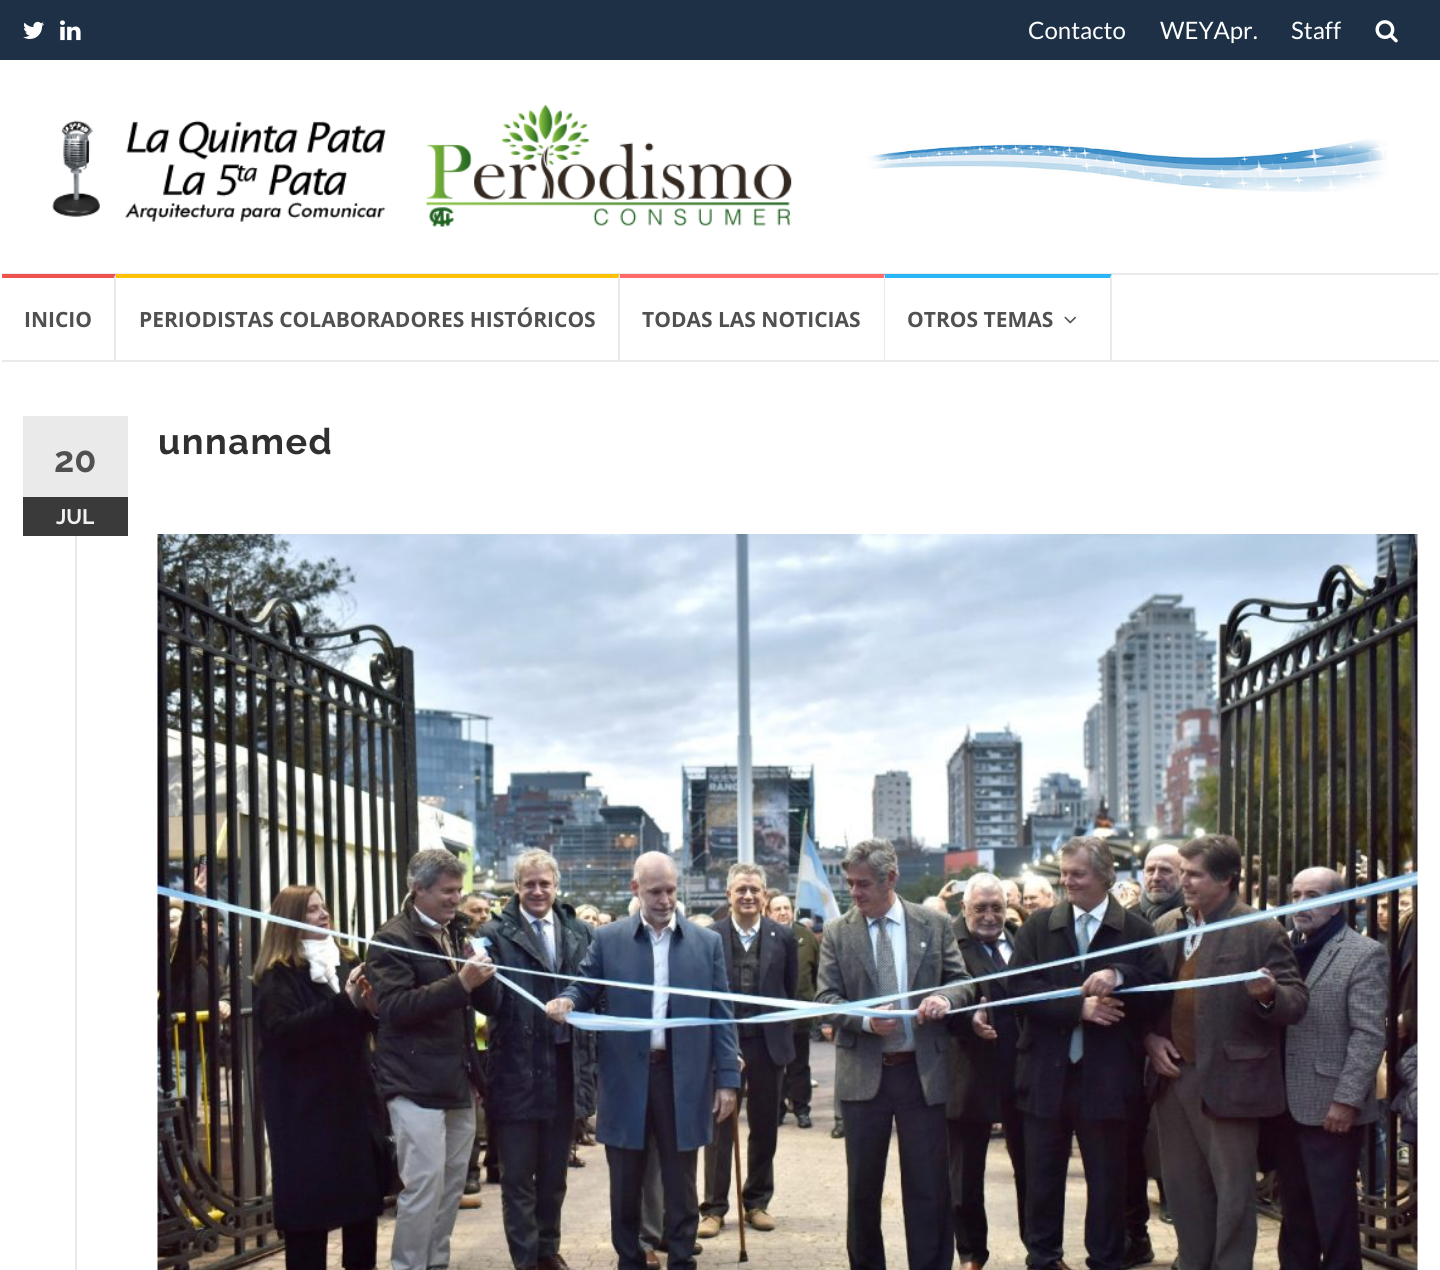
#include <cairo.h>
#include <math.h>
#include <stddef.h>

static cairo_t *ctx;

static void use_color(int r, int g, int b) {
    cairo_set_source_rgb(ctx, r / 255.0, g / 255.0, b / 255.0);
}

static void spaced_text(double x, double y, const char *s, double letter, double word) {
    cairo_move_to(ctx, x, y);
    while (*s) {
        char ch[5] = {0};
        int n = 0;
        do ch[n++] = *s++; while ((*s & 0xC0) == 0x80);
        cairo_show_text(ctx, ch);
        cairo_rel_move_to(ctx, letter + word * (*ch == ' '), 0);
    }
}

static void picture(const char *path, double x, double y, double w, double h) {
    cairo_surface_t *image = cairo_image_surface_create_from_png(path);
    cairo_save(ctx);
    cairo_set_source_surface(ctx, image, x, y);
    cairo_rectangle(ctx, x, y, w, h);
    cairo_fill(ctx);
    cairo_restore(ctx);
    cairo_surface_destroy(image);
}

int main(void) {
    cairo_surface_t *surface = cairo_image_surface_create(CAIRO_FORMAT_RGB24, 1440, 1270);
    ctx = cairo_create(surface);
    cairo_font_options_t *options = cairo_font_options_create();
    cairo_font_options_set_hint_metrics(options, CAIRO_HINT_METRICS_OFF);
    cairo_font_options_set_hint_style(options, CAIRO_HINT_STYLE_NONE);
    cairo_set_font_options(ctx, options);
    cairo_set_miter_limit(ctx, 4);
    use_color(255, 255, 255);
    cairo_paint(ctx);
    use_color(30, 48, 70);
    cairo_rectangle(ctx, 0, 0, 1440, 60);
    cairo_fill(ctx);
    picture("img1.png", 23, 21, 21, 18);
    picture("img2.png", 60, 20, 21, 21);
    cairo_select_font_face(ctx, "Lato", CAIRO_FONT_SLANT_NORMAL, CAIRO_FONT_WEIGHT_NORMAL);
    cairo_set_font_size(ctx, 24);
    use_color(255, 255, 255);
    cairo_move_to(ctx, 1028, 39);
    cairo_show_text(ctx, "Contacto");
    cairo_move_to(ctx, 1160, 39);
    cairo_show_text(ctx, "WEYApr.");
    cairo_move_to(ctx, 1291, 39);
    cairo_show_text(ctx, "Staff");
    picture("img3.png", 1375, 20, 23, 23);
    picture("img4.png", 52, 105, 740, 122);
    picture("img5.png", 867, 139, 521, 53);
    use_color(234, 234, 234);
    cairo_rectangle(ctx, 2, 273, 1437, 2);
    cairo_fill(ctx);
    cairo_rectangle(ctx, 2, 360, 1437, 2);
    cairo_fill(ctx);
    use_color(239, 83, 80);
    cairo_new_path(ctx);
    cairo_move_to(ctx, 2, 274);
    cairo_line_to(ctx, 116, 274);
    cairo_line_to(ctx, 114, 278);
    cairo_line_to(ctx, 2, 278);
    cairo_close_path(ctx);
    cairo_fill(ctx);
    use_color(234, 234, 234);
    cairo_new_path(ctx);
    cairo_move_to(ctx, 116, 274);
    cairo_line_to(ctx, 116, 360);
    cairo_line_to(ctx, 114, 360);
    cairo_line_to(ctx, 114, 278);
    cairo_close_path(ctx);
    cairo_fill(ctx);
    cairo_select_font_face(ctx, "Open Sans", CAIRO_FONT_SLANT_NORMAL, CAIRO_FONT_WEIGHT_BOLD);
    cairo_set_font_size(ctx, 21);
    use_color(80, 80, 80);
    cairo_move_to(ctx, 24, 327);
    cairo_show_text(ctx, "INICIO");
    use_color(255, 193, 7);
    cairo_new_path(ctx);
    cairo_move_to(ctx, 116, 274);
    cairo_line_to(ctx, 620, 274);
    cairo_line_to(ctx, 618, 278);
    cairo_line_to(ctx, 116, 278);
    cairo_close_path(ctx);
    cairo_fill(ctx);
    use_color(234, 234, 234);
    cairo_new_path(ctx);
    cairo_move_to(ctx, 620, 274);
    cairo_line_to(ctx, 620, 360);
    cairo_line_to(ctx, 618, 360);
    cairo_line_to(ctx, 618, 278);
    cairo_close_path(ctx);
    cairo_fill(ctx);
    use_color(80, 80, 80);
    cairo_move_to(ctx, 139, 327);
    cairo_show_text(ctx, "PERIODISTAS COLABORADORES HISTÓRICOS");
    use_color(255, 107, 107);
    cairo_new_path(ctx);
    cairo_move_to(ctx, 620, 274);
    cairo_line_to(ctx, 885, 274);
    cairo_line_to(ctx, 884, 278);
    cairo_line_to(ctx, 620, 278);
    cairo_close_path(ctx);
    cairo_fill(ctx);
    use_color(234, 234, 234);
    cairo_new_path(ctx);
    cairo_move_to(ctx, 885, 274);
    cairo_line_to(ctx, 885, 360);
    cairo_line_to(ctx, 884, 360);
    cairo_line_to(ctx, 884, 278);
    cairo_close_path(ctx);
    cairo_fill(ctx);
    use_color(80, 80, 80);
    cairo_move_to(ctx, 642, 327);
    cairo_show_text(ctx, "TODAS LAS NOTICIAS");
    use_color(41, 182, 246);
    cairo_new_path(ctx);
    cairo_move_to(ctx, 885, 274);
    cairo_line_to(ctx, 1112, 274);
    cairo_line_to(ctx, 1110, 278);
    cairo_line_to(ctx, 885, 278);
    cairo_close_path(ctx);
    cairo_fill(ctx);
    use_color(234, 234, 234);
    cairo_new_path(ctx);
    cairo_move_to(ctx, 1112, 274);
    cairo_line_to(ctx, 1112, 360);
    cairo_line_to(ctx, 1110, 360);
    cairo_line_to(ctx, 1110, 278);
    cairo_close_path(ctx);
    cairo_fill(ctx);
    use_color(80, 80, 80);
    cairo_move_to(ctx, 907, 327);
    cairo_show_text(ctx, "OTROS TEMAS");
    picture("img6.png", 1064, 316, 13, 8);
    cairo_select_font_face(ctx, "Raleway", CAIRO_FONT_SLANT_NORMAL, CAIRO_FONT_WEIGHT_BOLD);
    cairo_set_font_size(ctx, 36);
    use_color(48, 48, 48);
    spaced_text(158, 454, "unnamed", 1.5, 0);
    use_color(234, 234, 234);
    cairo_rectangle(ctx, 23, 416, 105, 81);
    cairo_fill(ctx);
    use_color(80, 80, 80);
    cairo_move_to(ctx, 54, 472);
    cairo_show_text(ctx, "20");
    use_color(58, 58, 58);
    cairo_rectangle(ctx, 23, 497, 105, 39);
    cairo_fill(ctx);
    cairo_set_font_size(ctx, 21);
    use_color(241, 241, 241);
    cairo_move_to(ctx, 56, 524);
    cairo_show_text(ctx, "JUL");
    use_color(234, 234, 234);
    cairo_rectangle(ctx, 75, 536, 2, 734);
    cairo_fill(ctx);
    picture("img7.png", 157, 534, 1261, 736);
    cairo_surface_write_to_png(surface, "result.png");
    cairo_font_options_destroy(options);
    cairo_destroy(ctx);
    cairo_surface_destroy(surface);
    return 0;
}
